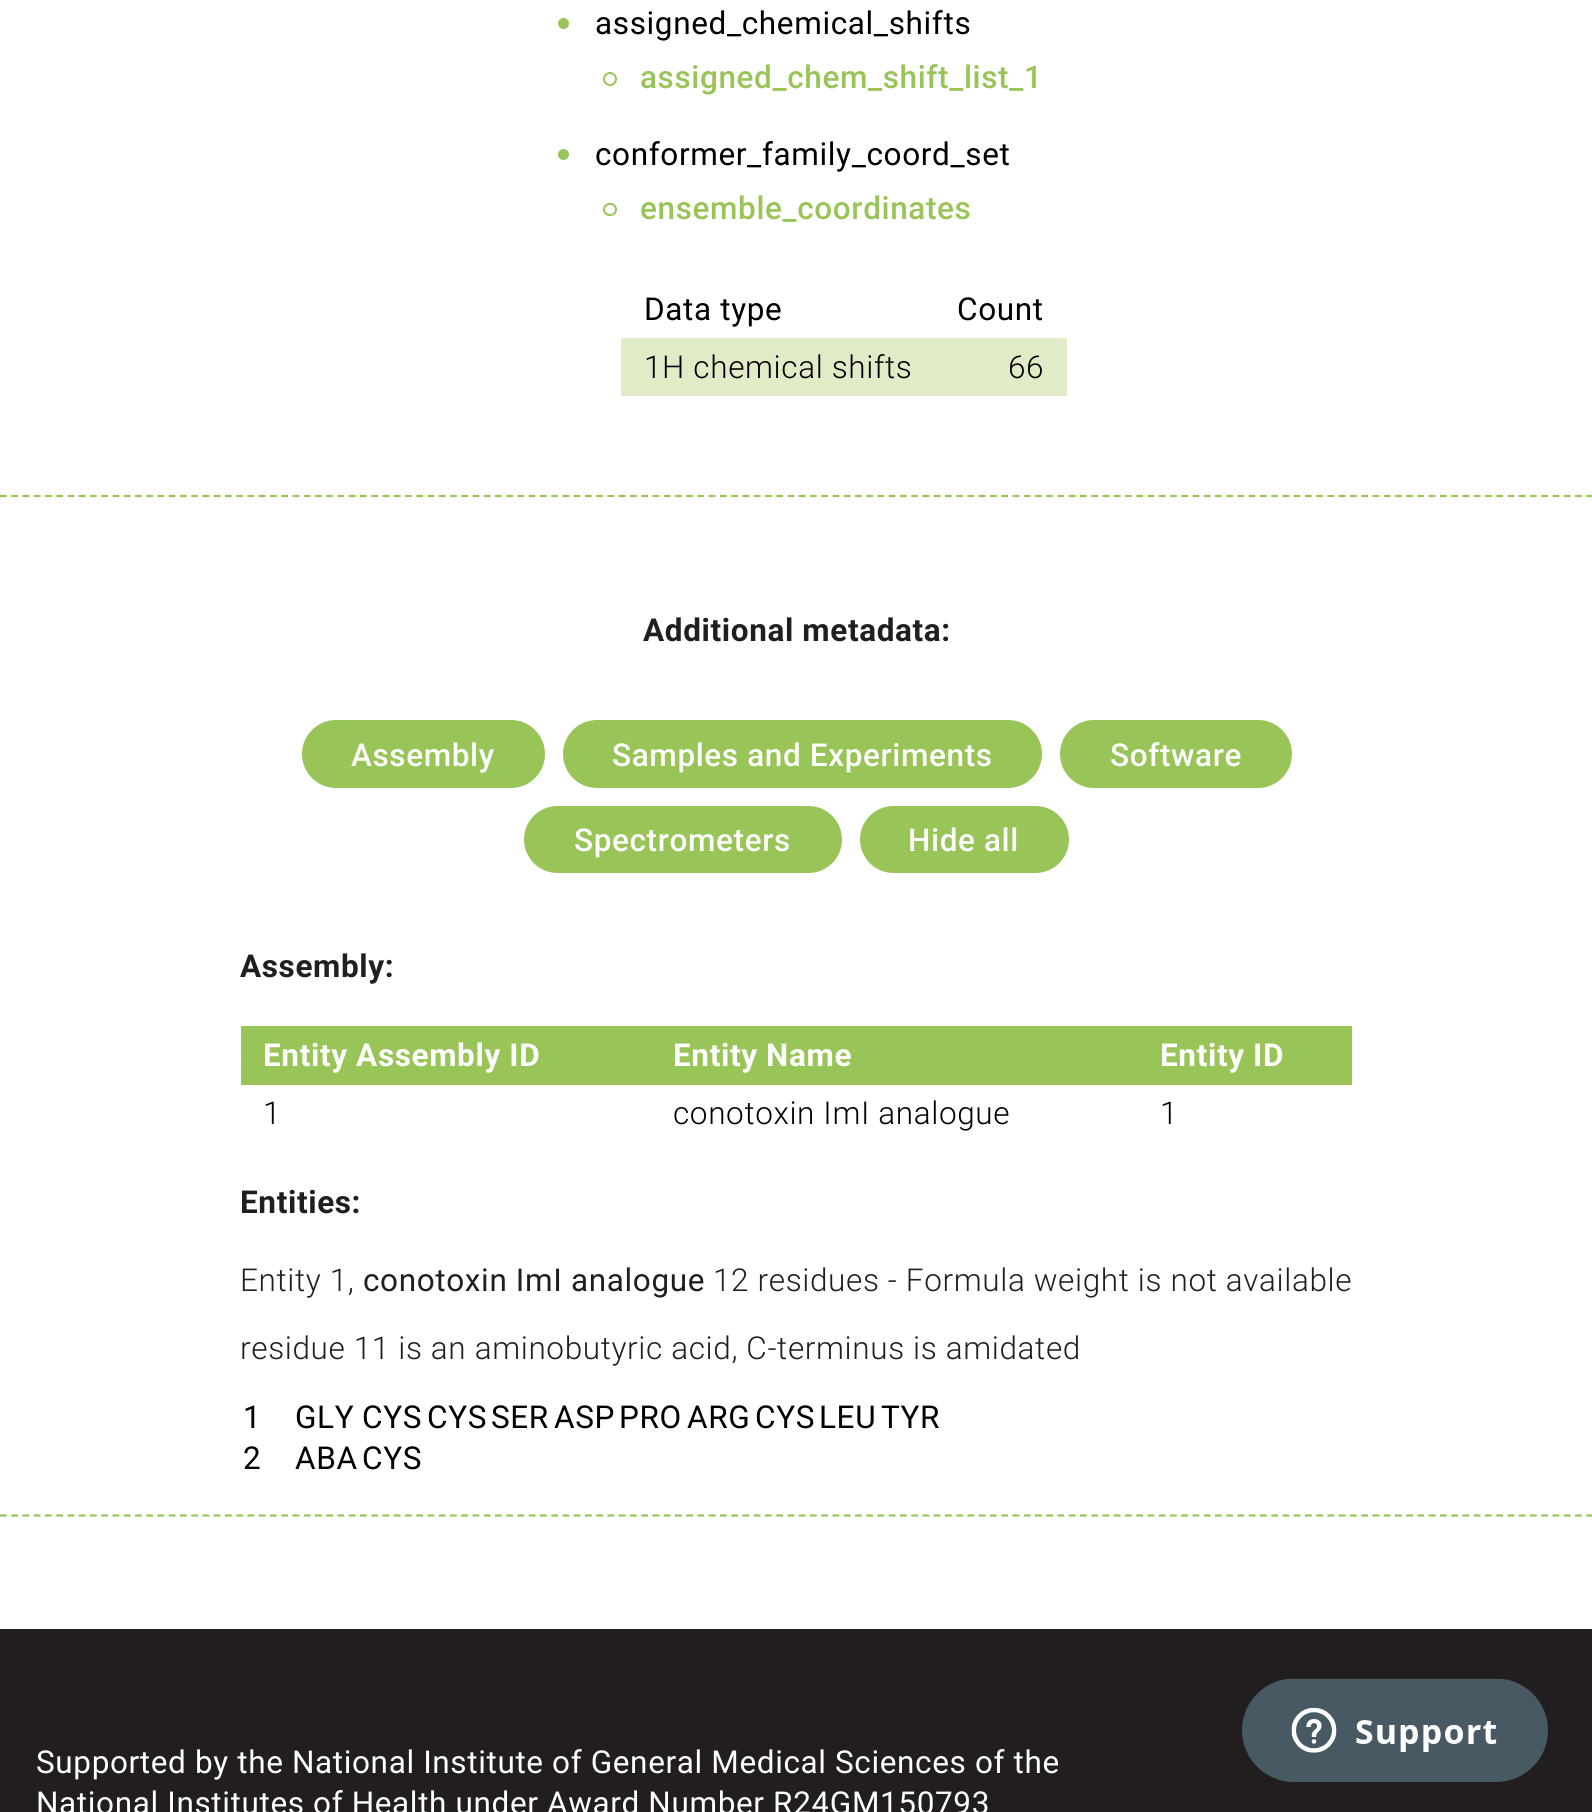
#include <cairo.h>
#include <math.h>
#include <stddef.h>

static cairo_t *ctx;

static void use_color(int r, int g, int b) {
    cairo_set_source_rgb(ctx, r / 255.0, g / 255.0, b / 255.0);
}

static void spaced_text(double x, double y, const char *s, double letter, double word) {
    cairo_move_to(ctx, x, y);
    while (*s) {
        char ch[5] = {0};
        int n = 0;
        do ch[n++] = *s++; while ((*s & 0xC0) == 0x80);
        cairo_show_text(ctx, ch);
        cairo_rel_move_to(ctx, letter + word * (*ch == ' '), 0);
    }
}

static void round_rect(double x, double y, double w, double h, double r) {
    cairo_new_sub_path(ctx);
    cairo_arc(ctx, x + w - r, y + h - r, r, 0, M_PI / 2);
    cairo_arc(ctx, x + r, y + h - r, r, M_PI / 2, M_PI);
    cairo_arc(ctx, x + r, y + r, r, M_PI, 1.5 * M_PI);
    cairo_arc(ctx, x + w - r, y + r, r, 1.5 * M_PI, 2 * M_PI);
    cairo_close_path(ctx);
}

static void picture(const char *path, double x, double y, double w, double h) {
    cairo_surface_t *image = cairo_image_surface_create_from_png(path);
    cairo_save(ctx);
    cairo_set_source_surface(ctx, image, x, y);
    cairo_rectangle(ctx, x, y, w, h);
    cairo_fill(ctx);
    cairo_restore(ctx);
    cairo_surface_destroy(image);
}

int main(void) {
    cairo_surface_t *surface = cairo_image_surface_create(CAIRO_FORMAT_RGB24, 1592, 1812);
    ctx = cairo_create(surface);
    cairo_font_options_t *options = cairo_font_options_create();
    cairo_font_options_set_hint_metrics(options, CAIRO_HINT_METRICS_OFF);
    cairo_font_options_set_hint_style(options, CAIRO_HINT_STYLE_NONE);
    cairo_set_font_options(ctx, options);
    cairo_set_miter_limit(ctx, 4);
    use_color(255, 255, 255);
    cairo_paint(ctx);
    cairo_new_path(ctx);
    cairo_move_to(ctx, 0, 496);
    cairo_line_to(ctx, 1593, 496);
    use_color(153, 196, 87);
    cairo_set_line_width(ctx, 2.2);
    cairo_set_dash(ctx, (double[]){6.75, 4.5}, 2, 0);
    cairo_stroke(ctx);
    cairo_arc(ctx, 563.5, 23.5, 5.5, 0, 2 * M_PI);
    cairo_fill(ctx);
    cairo_select_font_face(ctx, "Roboto", CAIRO_FONT_SLANT_NORMAL, CAIRO_FONT_WEIGHT_NORMAL);
    cairo_set_font_size(ctx, 31.5);
    use_color(0, 0, 0);
    spaced_text(595, 34, "assigned_chemical_shifts", 0.63, 0);
    cairo_new_path(ctx);
    cairo_arc(ctx, 610, 79, 6, 0, 2 * M_PI);
    use_color(153, 196, 87);
    cairo_set_line_width(ctx, 2);
    cairo_set_dash(ctx, NULL, 0, 0);
    cairo_stroke(ctx);
    cairo_select_font_face(ctx, "Roboto Medium", CAIRO_FONT_SLANT_NORMAL, CAIRO_FONT_WEIGHT_NORMAL);
    spaced_text(640, 88, "assigned_chem_shift_list_1", 0.63, 0);
    cairo_new_path(ctx);
    cairo_arc(ctx, 563.5, 154.5, 5.5, 0, 2 * M_PI);
    cairo_fill(ctx);
    cairo_select_font_face(ctx, "Roboto", CAIRO_FONT_SLANT_NORMAL, CAIRO_FONT_WEIGHT_NORMAL);
    use_color(0, 0, 0);
    spaced_text(595, 165, "conformer_family_coord_set", 0.63, 0);
    round_rect(604, 204, 12, 11, 5.5);
    use_color(153, 196, 87);
    cairo_stroke(ctx);
    cairo_select_font_face(ctx, "Roboto Medium", CAIRO_FONT_SLANT_NORMAL, CAIRO_FONT_WEIGHT_NORMAL);
    spaced_text(640, 219, "ensemble_coordinates", 0.63, 0);
    cairo_select_font_face(ctx, "Roboto", CAIRO_FONT_SLANT_NORMAL, CAIRO_FONT_WEIGHT_NORMAL);
    use_color(0, 0, 0);
    spaced_text(644, 320, "Data type", 0.63, 0);
    spaced_text(957, 320, "Count", 0.63, 0);
    use_color(225, 235, 200);
    cairo_rectangle(ctx, 621, 338, 446, 58);
    cairo_fill(ctx);
    cairo_select_font_face(ctx, "Roboto Light", CAIRO_FONT_SLANT_NORMAL, CAIRO_FONT_WEIGHT_NORMAL);
    use_color(0, 0, 0);
    spaced_text(644, 378, "1H chemical shifts", 0.63, 0);
    spaced_text(1008, 378, "66", 0.63, 0);
    cairo_new_path(ctx);
    cairo_move_to(ctx, 0, 1515.5);
    cairo_line_to(ctx, 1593, 1515.5);
    use_color(153, 196, 87);
    cairo_set_line_width(ctx, 2.2);
    cairo_set_dash(ctx, (double[]){6.75, 4.5}, 2, 0);
    cairo_stroke(ctx);
    cairo_select_font_face(ctx, "Roboto", CAIRO_FONT_SLANT_NORMAL, CAIRO_FONT_WEIGHT_BOLD);
    use_color(34, 30, 32);
    spaced_text(643, 641, "Additional metadata:", 0.63, 0);
    use_color(153, 196, 87);
    round_rect(302, 720, 243, 68, 34);
    cairo_fill(ctx);
    cairo_select_font_face(ctx, "Roboto Medium", CAIRO_FONT_SLANT_NORMAL, CAIRO_FONT_WEIGHT_NORMAL);
    use_color(255, 255, 255);
    spaced_text(351, 766, "Assembly", 0.63, 0);
    use_color(153, 196, 87);
    round_rect(563, 720, 479, 68, 34);
    cairo_fill(ctx);
    use_color(255, 255, 255);
    spaced_text(612, 766, "Samples and Experiments", 0.63, 0);
    use_color(153, 196, 87);
    round_rect(1060, 720, 232, 68, 34);
    cairo_fill(ctx);
    use_color(255, 255, 255);
    spaced_text(1110, 766, "Software", 0.63, 0);
    use_color(153, 196, 87);
    round_rect(524, 806, 318, 67, 33.5);
    cairo_fill(ctx);
    use_color(255, 255, 255);
    spaced_text(574, 851, "Spectrometers", 0.63, 0);
    use_color(153, 196, 87);
    round_rect(860, 806, 209, 67, 33.5);
    cairo_fill(ctx);
    use_color(255, 255, 255);
    spaced_text(908, 851, "Hide all", 0.63, 0);
    cairo_select_font_face(ctx, "Roboto", CAIRO_FONT_SLANT_NORMAL, CAIRO_FONT_WEIGHT_BOLD);
    use_color(34, 30, 32);
    spaced_text(240, 977, "Assembly:", 0.63, 0);
    use_color(153, 196, 87);
    cairo_rectangle(ctx, 241, 1026, 1111, 59);
    cairo_fill(ctx);
    use_color(255, 255, 255);
    spaced_text(263, 1066, "Entity Assembly ID", 0.63, 0);
    spaced_text(673, 1066, "Entity Name", 0.63, 0);
    spaced_text(1160, 1066, "Entity ID", 0.63, 0);
    cairo_select_font_face(ctx, "Roboto Light", CAIRO_FONT_SLANT_NORMAL, CAIRO_FONT_WEIGHT_NORMAL);
    use_color(0, 0, 0);
    spaced_text(263, 1124, "1", 0.63, 0);
    spaced_text(673, 1124, "conotoxin ImI analogue", 0.63, 0);
    spaced_text(1160, 1124, "1", 0.63, 0);
    cairo_select_font_face(ctx, "Roboto", CAIRO_FONT_SLANT_NORMAL, CAIRO_FONT_WEIGHT_BOLD);
    use_color(34, 30, 32);
    spaced_text(240, 1213, "Entities:", 0.63, 0);
    cairo_select_font_face(ctx, "Roboto Light", CAIRO_FONT_SLANT_NORMAL, CAIRO_FONT_WEIGHT_NORMAL);
    spaced_text(240, 1291, "Entity 1,", 0.63, 0);
    cairo_select_font_face(ctx, "Roboto", CAIRO_FONT_SLANT_NORMAL, CAIRO_FONT_WEIGHT_NORMAL);
    spaced_text(363, 1291, "conotoxin ImI analogue", 0.63, 0);
    cairo_select_font_face(ctx, "Roboto Light", CAIRO_FONT_SLANT_NORMAL, CAIRO_FONT_WEIGHT_NORMAL);
    spaced_text(713, 1291, "12 residues - Formula weight is not available", 0.63, 0);
    spaced_text(240, 1359, "residue 11 is an aminobutyric acid, C-terminus is amidated", 0.63, 0);
    cairo_select_font_face(ctx, "Roboto", CAIRO_FONT_SLANT_NORMAL, CAIRO_FONT_WEIGHT_NORMAL);
    use_color(0, 0, 0);
    spaced_text(243, 1428, "1", 0.63, 0);
    spaced_text(295, 1428, "GLY", 0.63, 0);
    spaced_text(362, 1428, "CYS", 0.63, 0);
    spaced_text(427, 1428, "CYS", 0.63, 0);
    spaced_text(491, 1428, "SER", 0.63, 0);
    spaced_text(554, 1428, "ASP", 0.63, 0);
    spaced_text(619, 1428, "PRO", 0.63, 0);
    spaced_text(687, 1428, "ARG", 0.63, 0);
    spaced_text(755, 1428, "CYS", 0.63, 0);
    spaced_text(819, 1428, "LEU", 0.63, 0);
    spaced_text(881, 1428, "TYR", 0.63, 0);
    spaced_text(243, 1469, "2", 0.63, 0);
    spaced_text(295, 1469, "ABA", 0.63, 0);
    spaced_text(362, 1469, "CYS", 0.63, 0);
    use_color(34, 30, 32);
    cairo_rectangle(ctx, 0, 1629, 1592, 183);
    cairo_fill(ctx);
    use_color(255, 255, 255);
    spaced_text(36, 1773, "Supported by the National Institute of General Medical Sciences of the", 0.63, 0);
    spaced_text(36, 1814, "National Institutes of Health under Award Number R24GM150793", 0.63, 0);
    picture("img1.png", 1242, 1678, 306, 104);
    cairo_surface_write_to_png(surface, "result.png");
    cairo_font_options_destroy(options);
    cairo_destroy(ctx);
    cairo_surface_destroy(surface);
    return 0;
}
